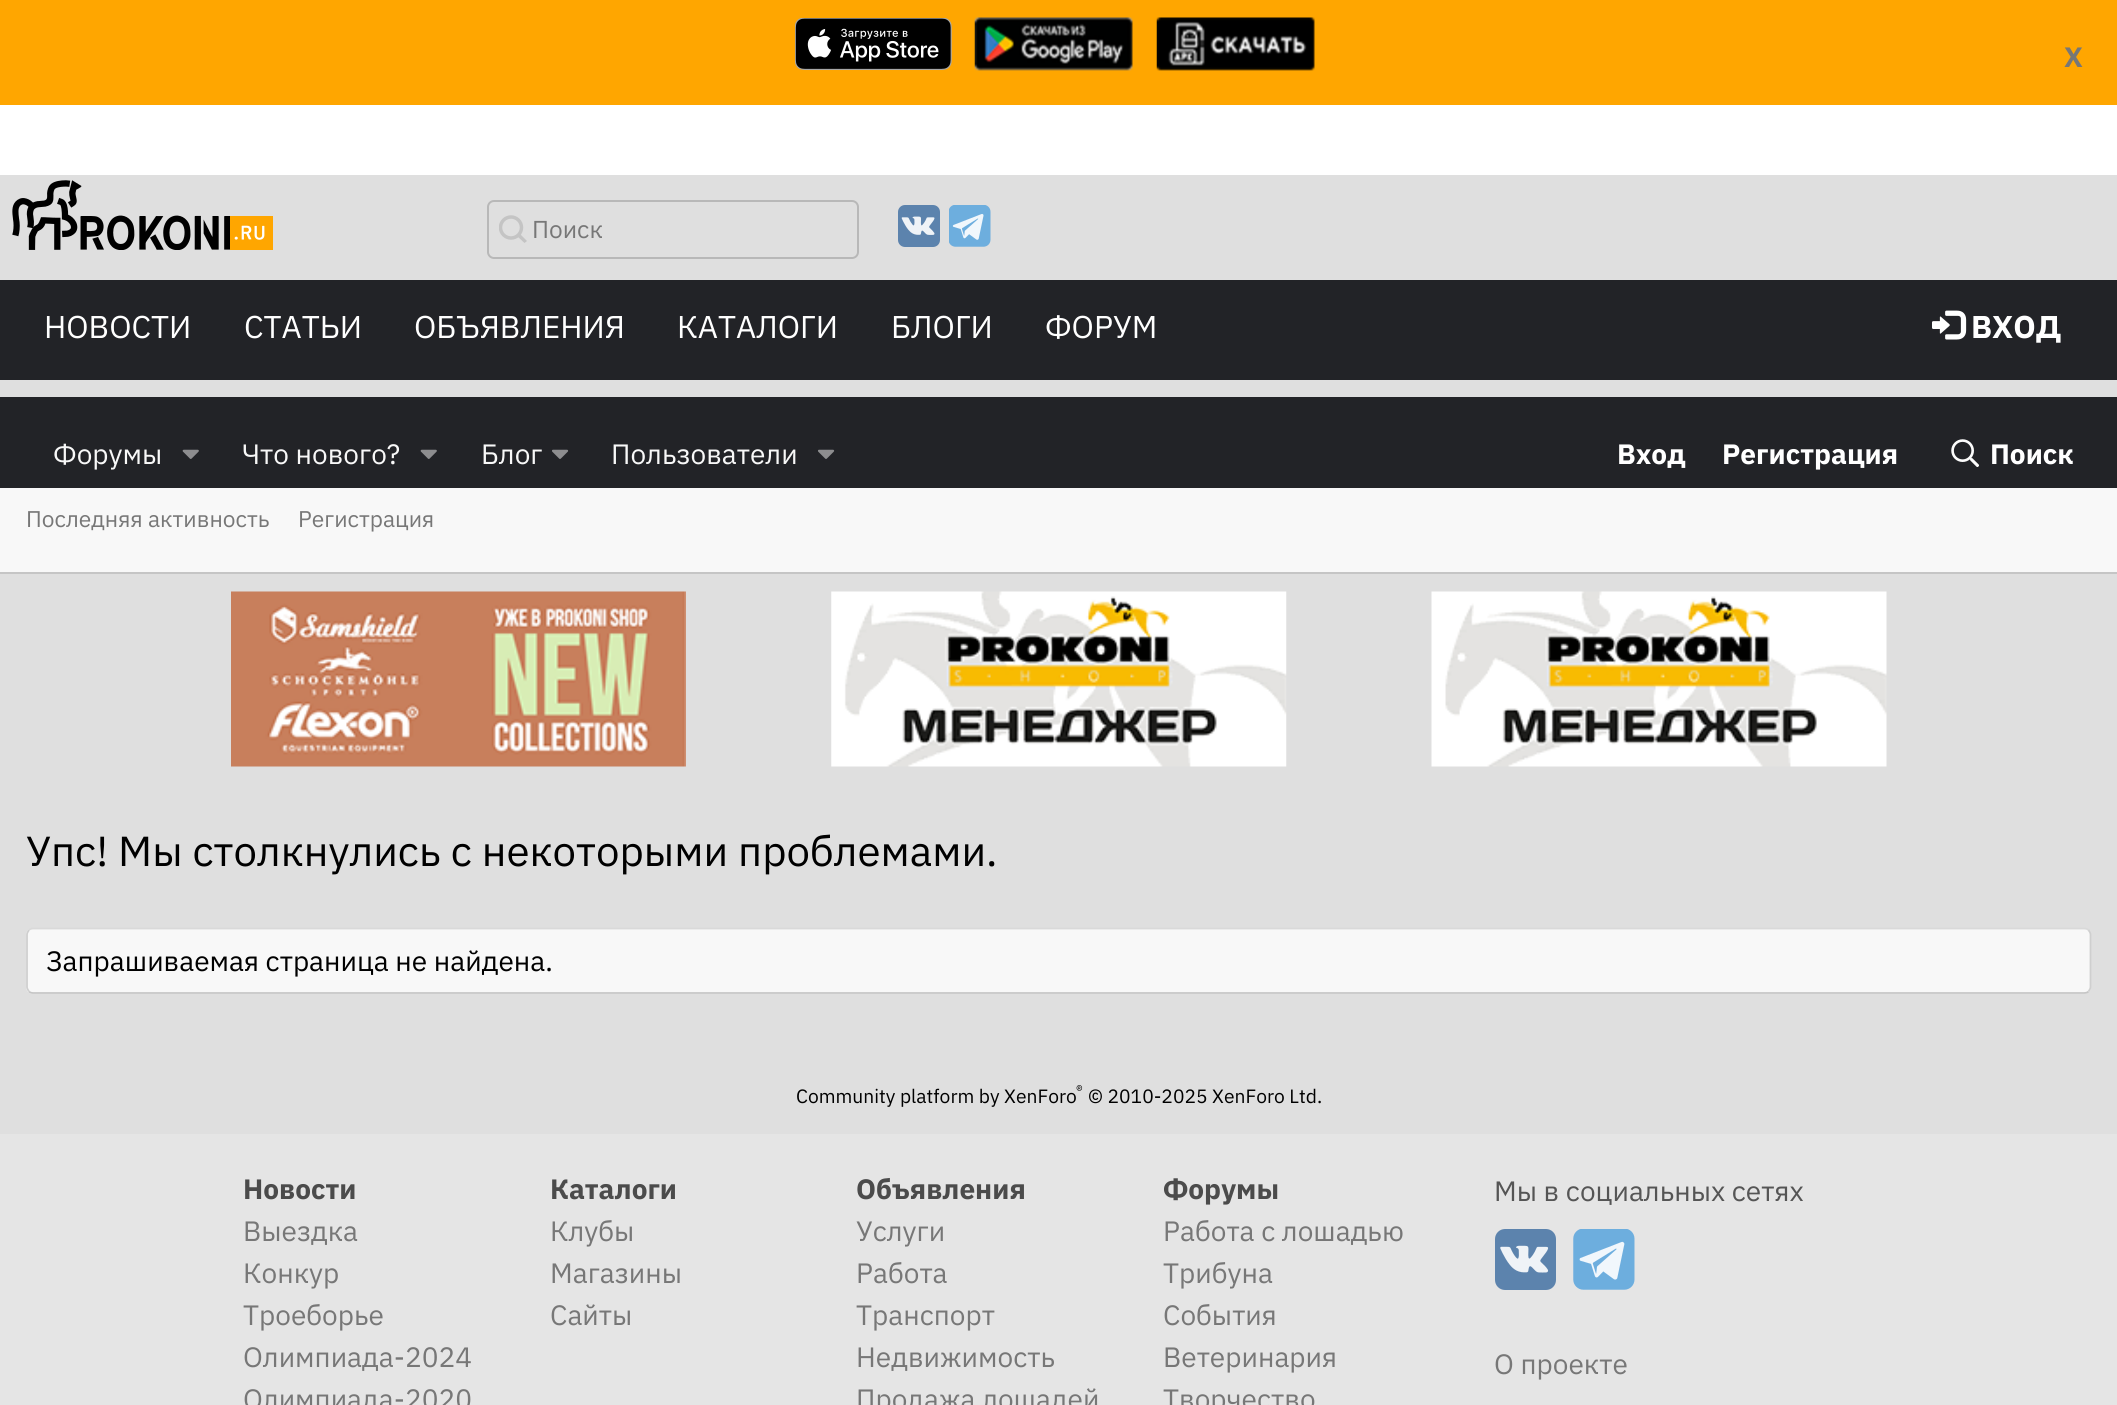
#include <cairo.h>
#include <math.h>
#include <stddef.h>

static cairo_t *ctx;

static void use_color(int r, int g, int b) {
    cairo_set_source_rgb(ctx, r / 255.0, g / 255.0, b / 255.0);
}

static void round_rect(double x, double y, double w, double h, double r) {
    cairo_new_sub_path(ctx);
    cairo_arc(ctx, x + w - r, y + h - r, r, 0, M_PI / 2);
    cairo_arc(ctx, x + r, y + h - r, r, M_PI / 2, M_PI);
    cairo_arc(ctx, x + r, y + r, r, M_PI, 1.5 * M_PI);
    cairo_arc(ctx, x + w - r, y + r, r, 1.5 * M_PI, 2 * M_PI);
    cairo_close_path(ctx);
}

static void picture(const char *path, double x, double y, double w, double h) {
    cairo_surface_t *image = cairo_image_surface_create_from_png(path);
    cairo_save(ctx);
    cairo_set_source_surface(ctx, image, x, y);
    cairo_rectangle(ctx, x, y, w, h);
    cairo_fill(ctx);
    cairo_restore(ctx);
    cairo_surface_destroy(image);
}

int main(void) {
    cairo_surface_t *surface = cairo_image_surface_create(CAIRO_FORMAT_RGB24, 2117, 1405);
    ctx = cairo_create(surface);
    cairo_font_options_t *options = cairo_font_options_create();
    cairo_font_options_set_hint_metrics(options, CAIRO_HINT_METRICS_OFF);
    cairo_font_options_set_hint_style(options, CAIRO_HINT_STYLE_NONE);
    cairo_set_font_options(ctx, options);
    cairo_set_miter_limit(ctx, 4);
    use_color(255, 255, 255);
    cairo_paint(ctx);
    use_color(255, 166, 0);
    cairo_rectangle(ctx, 0, 0, 2117, 105);
    cairo_fill(ctx);
    picture("img1.png", 795, 18, 157, 52);
    picture("img2.png", 974, 17, 159, 54);
    picture("img3.png", 1156, 17, 159, 54);
    cairo_select_font_face(ctx, "IBM Plex Sans", CAIRO_FONT_SLANT_NORMAL, CAIRO_FONT_WEIGHT_BOLD);
    cairo_set_font_size(ctx, 28);
    use_color(119, 119, 119);
    cairo_move_to(ctx, 2064, 67);
    cairo_show_text(ctx, "X");
    use_color(223, 223, 223);
    cairo_rectangle(ctx, 0, 175, 2117, 959);
    cairo_fill(ctx);
    picture("img4.png", 12, 180, 261, 70);
    use_color(196, 196, 196);
    cairo_set_fill_rule(ctx, CAIRO_FILL_RULE_EVEN_ODD);
    cairo_new_path(ctx);
    cairo_move_to(ctx, 524.5, 243);
    cairo_line_to(ctx, 517.5, 236.5);
    cairo_line_to(ctx, 520, 234);
    cairo_line_to(ctx, 527, 241);
    cairo_close_path(ctx);
    cairo_fill(ctx);
    cairo_save(ctx);
    cairo_set_fill_rule(ctx, CAIRO_FILL_RULE_WINDING);
    cairo_rectangle(ctx, 499, 215, 28, 28);
    cairo_clip(ctx);
    cairo_arc(ctx, 511, 227.5, 10.5, 0, 2 * M_PI);
    cairo_set_line_width(ctx, 3.5);
    cairo_stroke(ctx);
    cairo_restore(ctx);
    round_rect(488, 201, 370, 57, 6);
    use_color(184, 184, 184);
    cairo_stroke(ctx);
    cairo_select_font_face(ctx, "IBM Plex Sans", CAIRO_FONT_SLANT_NORMAL, CAIRO_FONT_WEIGHT_NORMAL);
    cairo_set_font_size(ctx, 24.5);
    use_color(119, 119, 119);
    cairo_move_to(ctx, 532, 238);
    cairo_show_text(ctx, "Поиск");
    picture("img5.png", 898, 205, 42, 42);
    picture("img6.png", 949, 205, 42, 42);
    use_color(34, 35, 39);
    cairo_rectangle(ctx, 0, 280, 2117, 100);
    cairo_fill(ctx);
    cairo_set_font_size(ctx, 31.5);
    use_color(255, 255, 255);
    cairo_move_to(ctx, 44, 338);
    cairo_show_text(ctx, "НОВОСТИ");
    cairo_move_to(ctx, 244, 338);
    cairo_show_text(ctx, "СТАТЬИ");
    cairo_move_to(ctx, 414, 338);
    cairo_show_text(ctx, "ОБЪЯВЛЕНИЯ");
    cairo_move_to(ctx, 677, 338);
    cairo_show_text(ctx, "КАТАЛОГИ");
    cairo_move_to(ctx, 891, 338);
    cairo_show_text(ctx, "БЛОГИ");
    cairo_move_to(ctx, 1045, 338);
    cairo_show_text(ctx, "ФОРУМ");
    picture("img7.png", 1932, 310, 35, 30);
    cairo_select_font_face(ctx, "IBM Plex Sans", CAIRO_FONT_SLANT_NORMAL, CAIRO_FONT_WEIGHT_BOLD);
    cairo_move_to(ctx, 1971, 338);
    cairo_show_text(ctx, "ВХОД");
    use_color(34, 35, 39);
    cairo_rectangle(ctx, 0, 397, 2117, 91);
    cairo_fill(ctx);
    cairo_select_font_face(ctx, "IBM Plex Sans", CAIRO_FONT_SLANT_NORMAL, CAIRO_FONT_WEIGHT_NORMAL);
    cairo_set_font_size(ctx, 28);
    use_color(248, 248, 248);
    cairo_move_to(ctx, 53, 464);
    cairo_show_text(ctx, "Форумы");
    picture("img8.png", 182, 449, 17, 10);
    cairo_move_to(ctx, 242, 464);
    cairo_show_text(ctx, "Что нового?");
    picture("img8.png", 420, 449, 17, 10);
    cairo_move_to(ctx, 481, 464);
    cairo_show_text(ctx, "Блог");
    picture("img9.png", 552, 449, 17, 10);
    cairo_move_to(ctx, 611, 464);
    cairo_show_text(ctx, "Пользователи");
    picture("img9.png", 818, 449, 17, 10);
    cairo_select_font_face(ctx, "IBM Plex Sans", CAIRO_FONT_SLANT_NORMAL, CAIRO_FONT_WEIGHT_BOLD);
    use_color(255, 255, 255);
    cairo_move_to(ctx, 1617, 464);
    cairo_show_text(ctx, "Вход");
    cairo_move_to(ctx, 1722, 464);
    cairo_show_text(ctx, "Регистрация");
    picture("img10.png", 1951, 439, 28, 28);
    cairo_move_to(ctx, 1990, 464);
    cairo_show_text(ctx, "Поиск");
    use_color(248, 248, 248);
    cairo_rectangle(ctx, 0, 488, 2117, 84);
    cairo_fill(ctx);
    use_color(197, 197, 197);
    cairo_rectangle(ctx, 0, 572, 2117, 2);
    cairo_fill(ctx);
    cairo_select_font_face(ctx, "IBM Plex Sans", CAIRO_FONT_SLANT_NORMAL, CAIRO_FONT_WEIGHT_NORMAL);
    cairo_set_font_size(ctx, 22.75);
    use_color(119, 119, 119);
    cairo_move_to(ctx, 26, 527);
    cairo_show_text(ctx, "Последняя активность");
    cairo_move_to(ctx, 298, 527);
    cairo_show_text(ctx, "Регистрация");
    picture("img11.png", 231, 591, 455, 176);
    picture("img12.png", 831, 591, 456, 176);
    picture("img13.png", 1431, 591, 456, 176);
    cairo_set_font_size(ctx, 42);
    use_color(0, 0, 0);
    cairo_move_to(ctx, 26, 866);
    cairo_show_text(ctx, "Упс! Мы столкнулись с некоторыми проблемами.");
    use_color(248, 248, 248);
    round_rect(26, 928, 2065, 66, 7);
    cairo_fill(ctx);
    cairo_new_path(ctx);
    cairo_move_to(ctx, 29, 930);
    cairo_curve_to(ctx, 30, 929, 31.5, 928.5, 33, 928.5);
    cairo_line_to(ctx, 2084, 928.5);
    cairo_curve_to(ctx, 2086, 928.5, 2087.5, 929, 2088.5, 930);
    use_color(217, 217, 217);
    cairo_set_line_width(ctx, 1.8);
    cairo_stroke(ctx);
    cairo_new_path(ctx);
    cairo_move_to(ctx, 2088.5, 930);
    cairo_curve_to(ctx, 2089.5, 931.5, 2090.5, 933, 2090.5, 934.5);
    cairo_line_to(ctx, 2090.5, 987);
    cairo_curve_to(ctx, 2090.5, 988.5, 2089.5, 990, 2088.5, 991.5);
    use_color(207, 207, 207);
    cairo_stroke(ctx);
    cairo_new_path(ctx);
    cairo_move_to(ctx, 2088.5, 991.5);
    cairo_curve_to(ctx, 2087.5, 992.5, 2086, 993, 2084, 993);
    cairo_line_to(ctx, 33, 993);
    cairo_curve_to(ctx, 31.5, 993, 30, 992.5, 29, 991.5);
    use_color(197, 197, 197);
    cairo_stroke(ctx);
    cairo_new_path(ctx);
    cairo_move_to(ctx, 29, 991.5);
    cairo_curve_to(ctx, 28, 990, 27, 988.5, 27, 987);
    cairo_line_to(ctx, 27, 934.5);
    cairo_curve_to(ctx, 27, 933, 28, 931.5, 29, 930);
    use_color(207, 207, 207);
    cairo_stroke(ctx);
    cairo_set_font_size(ctx, 28);
    use_color(0, 0, 0);
    cairo_move_to(ctx, 46, 971);
    cairo_show_text(ctx, "Запрашиваемая страница не найдена.");
    cairo_set_font_size(ctx, 19.25);
    cairo_move_to(ctx, 796, 1103);
    cairo_show_text(ctx, "Community platform by XenForo");
    cairo_set_font_size(ctx, 14);
    cairo_move_to(ctx, 1076, 1095);
    cairo_show_text(ctx, "®");
    cairo_set_font_size(ctx, 19.25);
    cairo_move_to(ctx, 1088, 1103);
    cairo_show_text(ctx, "© 2010-2025 XenForo Ltd.");
    use_color(229, 229, 229);
    cairo_rectangle(ctx, 0, 1134, 2117, 271);
    cairo_fill(ctx);
    cairo_select_font_face(ctx, "IBM Plex Sans", CAIRO_FONT_SLANT_NORMAL, CAIRO_FONT_WEIGHT_BOLD);
    cairo_set_font_size(ctx, 28);
    use_color(75, 75, 75);
    cairo_move_to(ctx, 243, 1199);
    cairo_show_text(ctx, "Новости");
    cairo_select_font_face(ctx, "IBM Plex Sans", CAIRO_FONT_SLANT_NORMAL, CAIRO_FONT_WEIGHT_NORMAL);
    use_color(119, 119, 119);
    cairo_move_to(ctx, 243, 1241);
    cairo_show_text(ctx, "Выездка");
    cairo_move_to(ctx, 243, 1283);
    cairo_show_text(ctx, "Конкур");
    cairo_move_to(ctx, 243, 1325);
    cairo_show_text(ctx, "Троеборье");
    cairo_move_to(ctx, 243, 1367);
    cairo_show_text(ctx, "Олимпиада-2024");
    cairo_move_to(ctx, 243, 1409);
    cairo_show_text(ctx, "Олимпиада-2020");
    cairo_select_font_face(ctx, "IBM Plex Sans", CAIRO_FONT_SLANT_NORMAL, CAIRO_FONT_WEIGHT_BOLD);
    use_color(75, 75, 75);
    cairo_move_to(ctx, 550, 1199);
    cairo_show_text(ctx, "Каталоги");
    cairo_select_font_face(ctx, "IBM Plex Sans", CAIRO_FONT_SLANT_NORMAL, CAIRO_FONT_WEIGHT_NORMAL);
    use_color(119, 119, 119);
    cairo_move_to(ctx, 550, 1241);
    cairo_show_text(ctx, "Клубы");
    cairo_move_to(ctx, 550, 1283);
    cairo_show_text(ctx, "Магазины");
    cairo_move_to(ctx, 550, 1325);
    cairo_show_text(ctx, "Сайты");
    cairo_select_font_face(ctx, "IBM Plex Sans", CAIRO_FONT_SLANT_NORMAL, CAIRO_FONT_WEIGHT_BOLD);
    use_color(75, 75, 75);
    cairo_move_to(ctx, 856, 1199);
    cairo_show_text(ctx, "Объявления");
    cairo_select_font_face(ctx, "IBM Plex Sans", CAIRO_FONT_SLANT_NORMAL, CAIRO_FONT_WEIGHT_NORMAL);
    use_color(119, 119, 119);
    cairo_move_to(ctx, 856, 1241);
    cairo_show_text(ctx, "Услуги");
    cairo_move_to(ctx, 856, 1283);
    cairo_show_text(ctx, "Работа");
    cairo_move_to(ctx, 856, 1325);
    cairo_show_text(ctx, "Транспорт");
    cairo_move_to(ctx, 856, 1367);
    cairo_show_text(ctx, "Недвижимость");
    cairo_move_to(ctx, 856, 1409);
    cairo_show_text(ctx, "Продажа лошадей");
    cairo_select_font_face(ctx, "IBM Plex Sans", CAIRO_FONT_SLANT_NORMAL, CAIRO_FONT_WEIGHT_BOLD);
    use_color(75, 75, 75);
    cairo_move_to(ctx, 1163, 1199);
    cairo_show_text(ctx, "Форумы");
    cairo_select_font_face(ctx, "IBM Plex Sans", CAIRO_FONT_SLANT_NORMAL, CAIRO_FONT_WEIGHT_NORMAL);
    use_color(119, 119, 119);
    cairo_move_to(ctx, 1163, 1241);
    cairo_show_text(ctx, "Работа с лошадью");
    cairo_move_to(ctx, 1163, 1283);
    cairo_show_text(ctx, "Трибуна");
    cairo_move_to(ctx, 1163, 1325);
    cairo_show_text(ctx, "События");
    cairo_move_to(ctx, 1163, 1367);
    cairo_show_text(ctx, "Ветеринария");
    cairo_move_to(ctx, 1163, 1409);
    cairo_show_text(ctx, "Творчество");
    use_color(85, 85, 85);
    cairo_move_to(ctx, 1494, 1201);
    cairo_show_text(ctx, "Мы в социальных сетях");
    picture("img14.png", 1495, 1229, 61, 61);
    picture("img15.png", 1573, 1229, 62, 61);
    use_color(119, 119, 119);
    cairo_move_to(ctx, 1494, 1374);
    cairo_show_text(ctx, "О проекте");
    cairo_surface_write_to_png(surface, "result.png");
    cairo_font_options_destroy(options);
    cairo_destroy(ctx);
    cairo_surface_destroy(surface);
    return 0;
}
